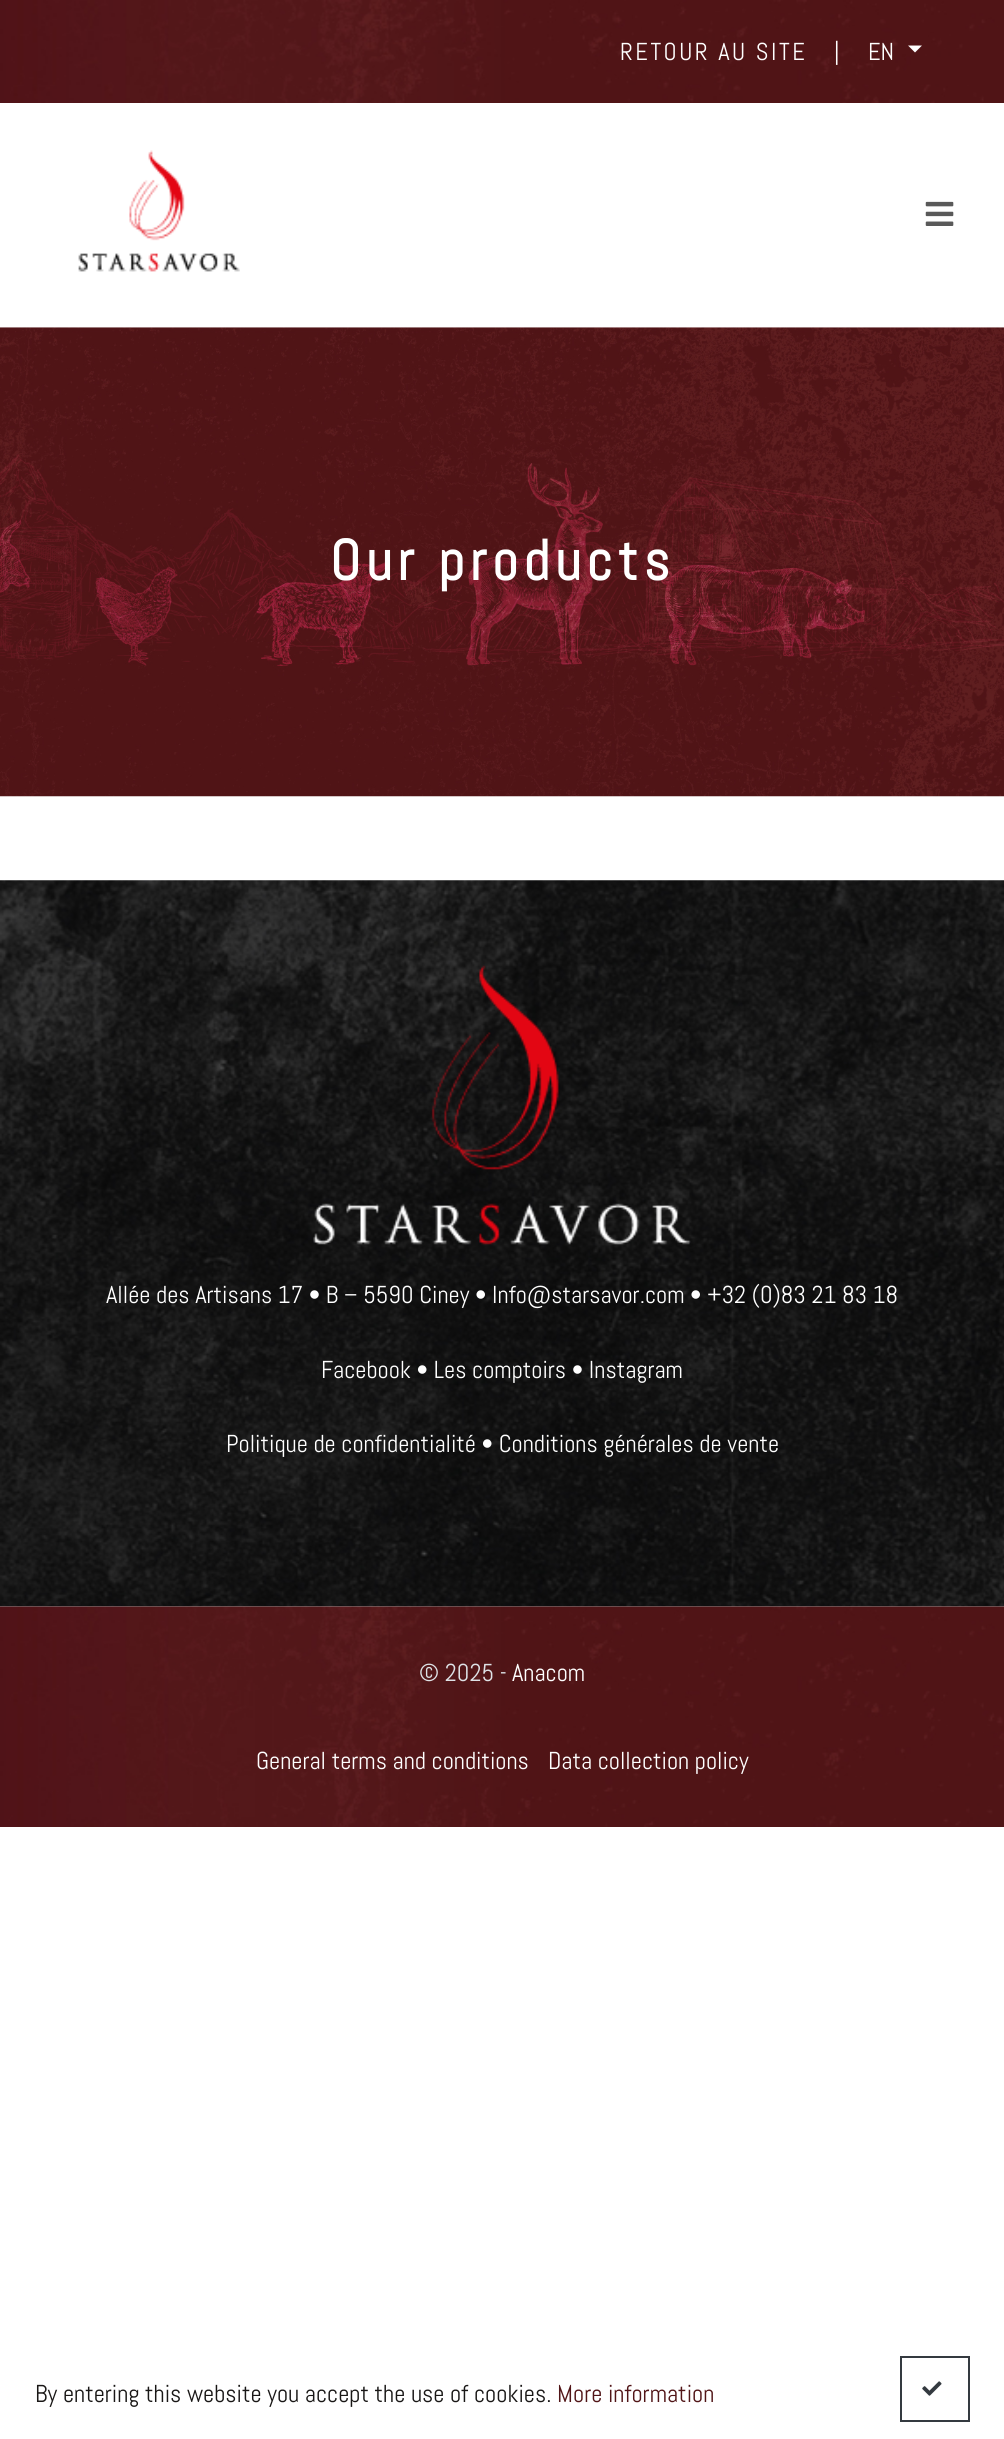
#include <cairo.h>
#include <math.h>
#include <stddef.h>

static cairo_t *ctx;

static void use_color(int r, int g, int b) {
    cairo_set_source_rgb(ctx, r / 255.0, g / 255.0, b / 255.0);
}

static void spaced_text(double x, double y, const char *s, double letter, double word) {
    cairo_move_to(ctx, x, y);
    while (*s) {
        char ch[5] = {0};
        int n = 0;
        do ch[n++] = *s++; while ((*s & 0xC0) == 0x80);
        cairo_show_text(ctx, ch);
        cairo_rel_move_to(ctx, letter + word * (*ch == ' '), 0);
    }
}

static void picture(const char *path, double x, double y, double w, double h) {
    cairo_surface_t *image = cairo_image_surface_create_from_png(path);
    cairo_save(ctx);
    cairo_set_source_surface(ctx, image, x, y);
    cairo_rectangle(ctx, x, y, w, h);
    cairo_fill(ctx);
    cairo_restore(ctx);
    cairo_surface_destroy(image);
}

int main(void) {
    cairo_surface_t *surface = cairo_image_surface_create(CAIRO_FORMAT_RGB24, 1004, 2439);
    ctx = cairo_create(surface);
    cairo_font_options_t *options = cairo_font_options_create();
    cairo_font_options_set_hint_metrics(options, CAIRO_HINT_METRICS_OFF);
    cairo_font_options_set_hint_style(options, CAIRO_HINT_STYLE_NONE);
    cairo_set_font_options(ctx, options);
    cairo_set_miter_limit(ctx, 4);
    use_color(255, 255, 255);
    cairo_paint(ctx);
    picture("img1.png", 0, 0, 1004, 103);
    cairo_select_font_face(ctx, "Abel", CAIRO_FONT_SLANT_NORMAL, CAIRO_FONT_WEIGHT_NORMAL);
    cairo_set_font_size(ctx, 24.5);
    use_color(255, 255, 255);
    spaced_text(620, 60, "RETOUR AU SITE", 2.5, 0);
    cairo_move_to(ctx, 834, 60);
    cairo_show_text(ctx, "|");
    cairo_move_to(ctx, 868, 60);
    cairo_show_text(ctx, "EN");
    cairo_new_path(ctx);
    cairo_move_to(ctx, 908, 45.5);
    cairo_line_to(ctx, 922, 45.5);
    cairo_line_to(ctx, 915, 52.5);
    cairo_close_path(ctx);
    cairo_fill(ctx);
    picture("img2.png", 78, 150, 162, 122);
    picture("img3.png", 925, 201, 29, 25);
    picture("img4.png", 0, 327, 1004, 470);
    cairo_select_font_face(ctx, "Abel", CAIRO_FONT_SLANT_NORMAL, CAIRO_FONT_WEIGHT_BOLD);
    cairo_set_font_size(ctx, 56.75);
    spaced_text(330, 580, "Our products", 5.75, 0);
    picture("img5.png", 0, 880, 1004, 727);
    picture("img6.png", 313, 965, 378, 280);
    cairo_select_font_face(ctx, "Abel", CAIRO_FONT_SLANT_NORMAL, CAIRO_FONT_WEIGHT_NORMAL);
    cairo_set_font_size(ctx, 24.5);
    cairo_move_to(ctx, 106, 1303);
    cairo_show_text(ctx, "Allée des Artisans 17 • B – 5590 Ciney • Info@starsavor.com • +32 (0)83 21 83 18");
    cairo_move_to(ctx, 321, 1378);
    cairo_show_text(ctx, "Facebook • Les comptoirs • Instagram");
    cairo_move_to(ctx, 226, 1452);
    cairo_show_text(ctx, "Politique de confidentialité • Conditions générales de vente");
    picture("img7.png", 0, 1606, 1004, 221);
    use_color(222, 226, 230);
    cairo_move_to(ctx, 419, 1681);
    cairo_show_text(ctx, "© 2025 -");
    use_color(255, 255, 255);
    cairo_move_to(ctx, 512, 1681);
    cairo_show_text(ctx, "Anacom");
    cairo_move_to(ctx, 256, 1769);
    cairo_show_text(ctx, "General terms and conditions");
    cairo_move_to(ctx, 548, 1769);
    cairo_show_text(ctx, "Data collection policy");
    use_color(25, 23, 22);
    cairo_move_to(ctx, 35, 2402);
    cairo_show_text(ctx, "By entering this website you accept the use of cookies.");
    use_color(81, 21, 23);
    cairo_move_to(ctx, 557, 2402);
    cairo_show_text(ctx, "More information");
    cairo_rectangle(ctx, 901, 2357, 68, 64);
    use_color(52, 58, 64);
    cairo_stroke(ctx);
    picture("img8.png", 922, 2381, 20, 15);
    cairo_surface_write_to_png(surface, "result.png");
    cairo_font_options_destroy(options);
    cairo_destroy(ctx);
    cairo_surface_destroy(surface);
    return 0;
}
